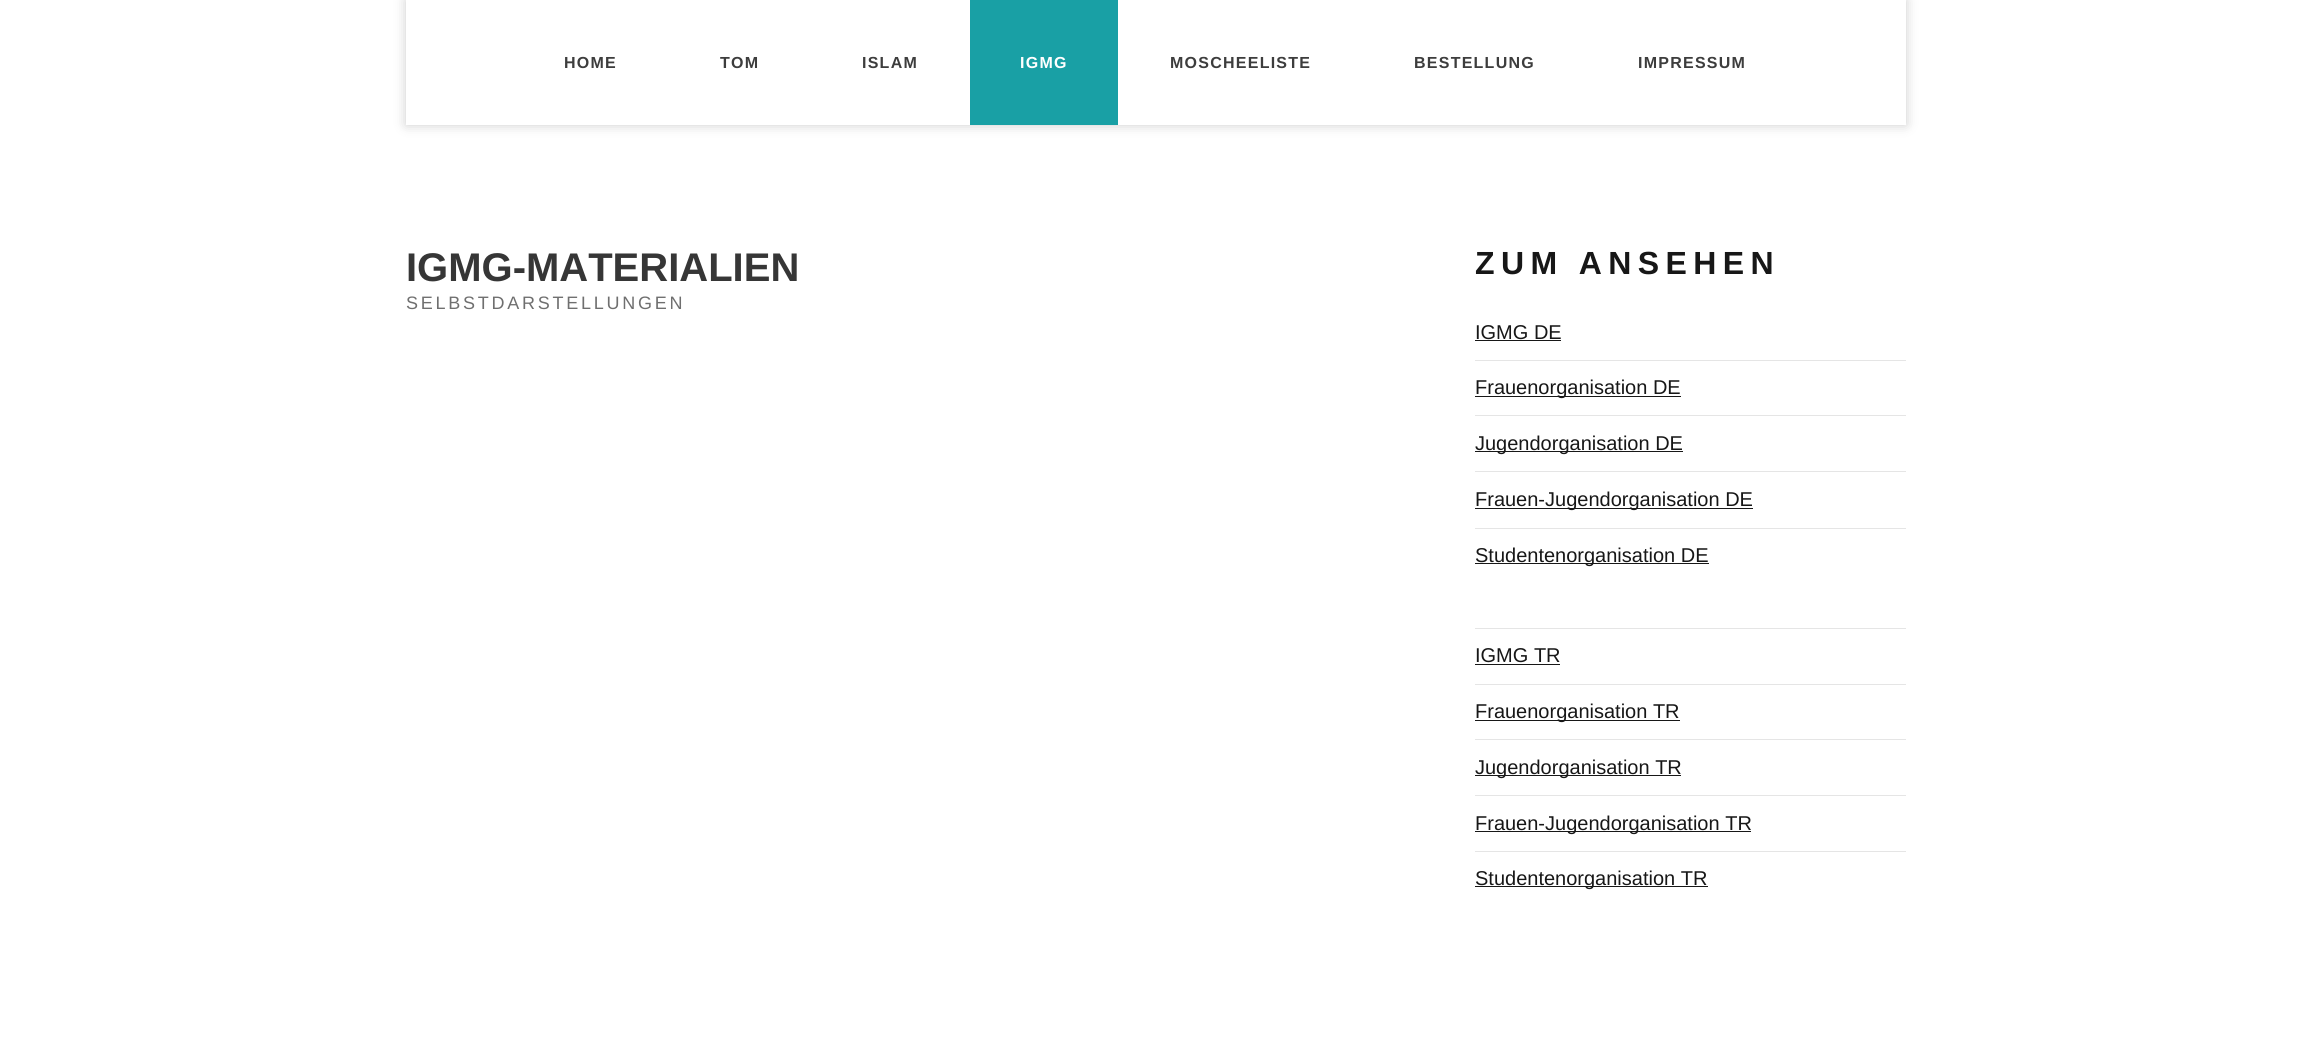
#include <cairo.h>
#include <math.h>
#include <stddef.h>

static cairo_t *ctx;

static void use_color(int r, int g, int b) {
    cairo_set_source_rgb(ctx, r / 255.0, g / 255.0, b / 255.0);
}

static void spaced_text(double x, double y, const char *s, double letter, double word) {
    cairo_move_to(ctx, x, y);
    while (*s) {
        char ch[5] = {0};
        int n = 0;
        do ch[n++] = *s++; while ((*s & 0xC0) == 0x80);
        cairo_show_text(ctx, ch);
        cairo_rel_move_to(ctx, letter + word * (*ch == ' '), 0);
    }
}

static void round_rect(double x, double y, double w, double h, double r) {
    cairo_new_sub_path(ctx);
    cairo_arc(ctx, x + w - r, y + h - r, r, 0, M_PI / 2);
    cairo_arc(ctx, x + r, y + h - r, r, M_PI / 2, M_PI);
    cairo_arc(ctx, x + r, y + r, r, M_PI, 1.5 * M_PI);
    cairo_arc(ctx, x + w - r, y + r, r, 1.5 * M_PI, 2 * M_PI);
    cairo_close_path(ctx);
}

static void shadow(double x, double y, double w, double h, double r, double blur, double alpha) {
    cairo_push_group_with_content(ctx, CAIRO_CONTENT_ALPHA);
    cairo_set_operator(ctx, CAIRO_OPERATOR_SOURCE);
    for (int i = 15; i >= -15 && fmin(w, h) + blur * i / 3 > 0; i -= 2) {
        double e = blur * i / 6;
        cairo_set_source_rgba(ctx, 0, 0, 0, alpha * erfc((i - 1) / 8.5) / 2);
        round_rect(x - e, y - e, w + 2 * e, h + 2 * e, fmax(0, fmin(r + e + blur * .6, fmin(w, h) / 2 + e)));
        cairo_fill(ctx);
    }
    cairo_pattern_t *soft = cairo_pop_group(ctx);
    cairo_mask(ctx, soft);
    cairo_pattern_destroy(soft);
}

int main(void) {
    cairo_surface_t *surface = cairo_image_surface_create(CAIRO_FORMAT_RGB24, 2312, 1047);
    ctx = cairo_create(surface);
    cairo_font_options_t *options = cairo_font_options_create();
    cairo_font_options_set_hint_metrics(options, CAIRO_HINT_METRICS_OFF);
    cairo_font_options_set_hint_style(options, CAIRO_HINT_STYLE_NONE);
    cairo_set_font_options(ctx, options);
    cairo_set_miter_limit(ctx, 4);
    use_color(255, 255, 255);
    cairo_paint(ctx);
    use_color(0, 0, 0);
    shadow(406, 0, 1500, 125, 0, 6, 0.2);
    use_color(255, 255, 255);
    cairo_rectangle(ctx, 406, 0, 1500, 125);
    cairo_fill(ctx);
    cairo_select_font_face(ctx, "Liberation Sans", CAIRO_FONT_SLANT_NORMAL, CAIRO_FONT_WEIGHT_BOLD);
    cairo_set_font_size(ctx, 16);
    use_color(61, 61, 61);
    spaced_text(564, 68, "HOME", 1.25, 0);
    spaced_text(720, 68, "TOM", 1.25, 0);
    spaced_text(862, 68, "ISLAM", 1.25, 0);
    use_color(25, 160, 165);
    cairo_rectangle(ctx, 970, 0, 148, 125);
    cairo_fill(ctx);
    use_color(255, 255, 255);
    spaced_text(1020, 68, "IGMG", 1.25, 0);
    use_color(61, 61, 61);
    spaced_text(1170, 68, "MOSCHEELISTE", 1.25, 0);
    spaced_text(1414, 68, "BESTELLUNG", 1.25, 0);
    spaced_text(1638, 68, "IMPRESSUM", 1.25, 0);
    cairo_set_font_size(ctx, 40);
    use_color(54, 54, 54);
    cairo_move_to(ctx, 406, 281);
    cairo_show_text(ctx, "IGMG-MATERIALIEN");
    cairo_select_font_face(ctx, "Liberation Sans", CAIRO_FONT_SLANT_NORMAL, CAIRO_FONT_WEIGHT_NORMAL);
    cairo_set_font_size(ctx, 18);
    use_color(111, 111, 111);
    spaced_text(406, 309, "SELBSTDARSTELLUNGEN", 2.75, 0);
    cairo_select_font_face(ctx, "Liberation Sans", CAIRO_FONT_SLANT_NORMAL, CAIRO_FONT_WEIGHT_BOLD);
    cairo_set_font_size(ctx, 32);
    use_color(23, 23, 23);
    spaced_text(1475, 274, "ZUM ANSEHEN", 6.4, 0);
    cairo_select_font_face(ctx, "Liberation Sans", CAIRO_FONT_SLANT_NORMAL, CAIRO_FONT_WEIGHT_NORMAL);
    cairo_set_font_size(ctx, 20);
    cairo_move_to(ctx, 1475, 339);
    cairo_show_text(ctx, "IGMG DE");
    cairo_rectangle(ctx, 1475, 340, 86, 1);
    cairo_fill(ctx);
    use_color(229, 229, 229);
    cairo_rectangle(ctx, 1475, 360, 431, 1);
    cairo_fill(ctx);
    use_color(23, 23, 23);
    cairo_rectangle(ctx, 1475, 396, 206, 1);
    cairo_fill(ctx);
    cairo_move_to(ctx, 1475, 394);
    cairo_show_text(ctx, "Frauenorganisation DE");
    use_color(229, 229, 229);
    cairo_rectangle(ctx, 1475, 415, 431, 1);
    cairo_fill(ctx);
    use_color(23, 23, 23);
    cairo_rectangle(ctx, 1475, 451, 208, 1);
    cairo_fill(ctx);
    cairo_move_to(ctx, 1475, 450);
    cairo_show_text(ctx, "Jugendorganisation DE");
    use_color(229, 229, 229);
    cairo_rectangle(ctx, 1475, 471, 431, 1);
    cairo_fill(ctx);
    use_color(23, 23, 23);
    cairo_rectangle(ctx, 1475, 508, 278, 1);
    cairo_fill(ctx);
    cairo_move_to(ctx, 1475, 506);
    cairo_show_text(ctx, "Frauen-Jugendorganisation DE");
    use_color(229, 229, 229);
    cairo_rectangle(ctx, 1475, 528, 431, 1);
    cairo_fill(ctx);
    use_color(23, 23, 23);
    cairo_rectangle(ctx, 1475, 563, 234, 1);
    cairo_fill(ctx);
    cairo_move_to(ctx, 1475, 562);
    cairo_show_text(ctx, "Studentenorganisation DE");
    use_color(229, 229, 229);
    cairo_rectangle(ctx, 1475, 628, 431, 1);
    cairo_fill(ctx);
    use_color(23, 23, 23);
    cairo_move_to(ctx, 1475, 662);
    cairo_show_text(ctx, "IGMG TR");
    cairo_rectangle(ctx, 1475, 664, 85, 1);
    cairo_fill(ctx);
    use_color(229, 229, 229);
    cairo_rectangle(ctx, 1475, 684, 431, 1);
    cairo_fill(ctx);
    use_color(23, 23, 23);
    cairo_rectangle(ctx, 1475, 720, 205, 1);
    cairo_fill(ctx);
    cairo_move_to(ctx, 1475, 718);
    cairo_show_text(ctx, "Frauenorganisation TR");
    use_color(229, 229, 229);
    cairo_rectangle(ctx, 1475, 739, 431, 1);
    cairo_fill(ctx);
    use_color(23, 23, 23);
    cairo_rectangle(ctx, 1475, 775, 206, 1);
    cairo_fill(ctx);
    cairo_move_to(ctx, 1475, 774);
    cairo_show_text(ctx, "Jugendorganisation TR");
    use_color(229, 229, 229);
    cairo_rectangle(ctx, 1475, 795, 431, 1);
    cairo_fill(ctx);
    use_color(23, 23, 23);
    cairo_rectangle(ctx, 1475, 831, 276, 1);
    cairo_fill(ctx);
    cairo_move_to(ctx, 1475, 830);
    cairo_show_text(ctx, "Frauen-Jugendorganisation TR");
    use_color(229, 229, 229);
    cairo_rectangle(ctx, 1475, 851, 431, 1);
    cairo_fill(ctx);
    use_color(23, 23, 23);
    cairo_rectangle(ctx, 1475, 886, 233, 1);
    cairo_fill(ctx);
    cairo_move_to(ctx, 1475, 885);
    cairo_show_text(ctx, "Studentenorganisation TR");
    cairo_surface_write_to_png(surface, "result.png");
    cairo_font_options_destroy(options);
    cairo_destroy(ctx);
    cairo_surface_destroy(surface);
    return 0;
}
